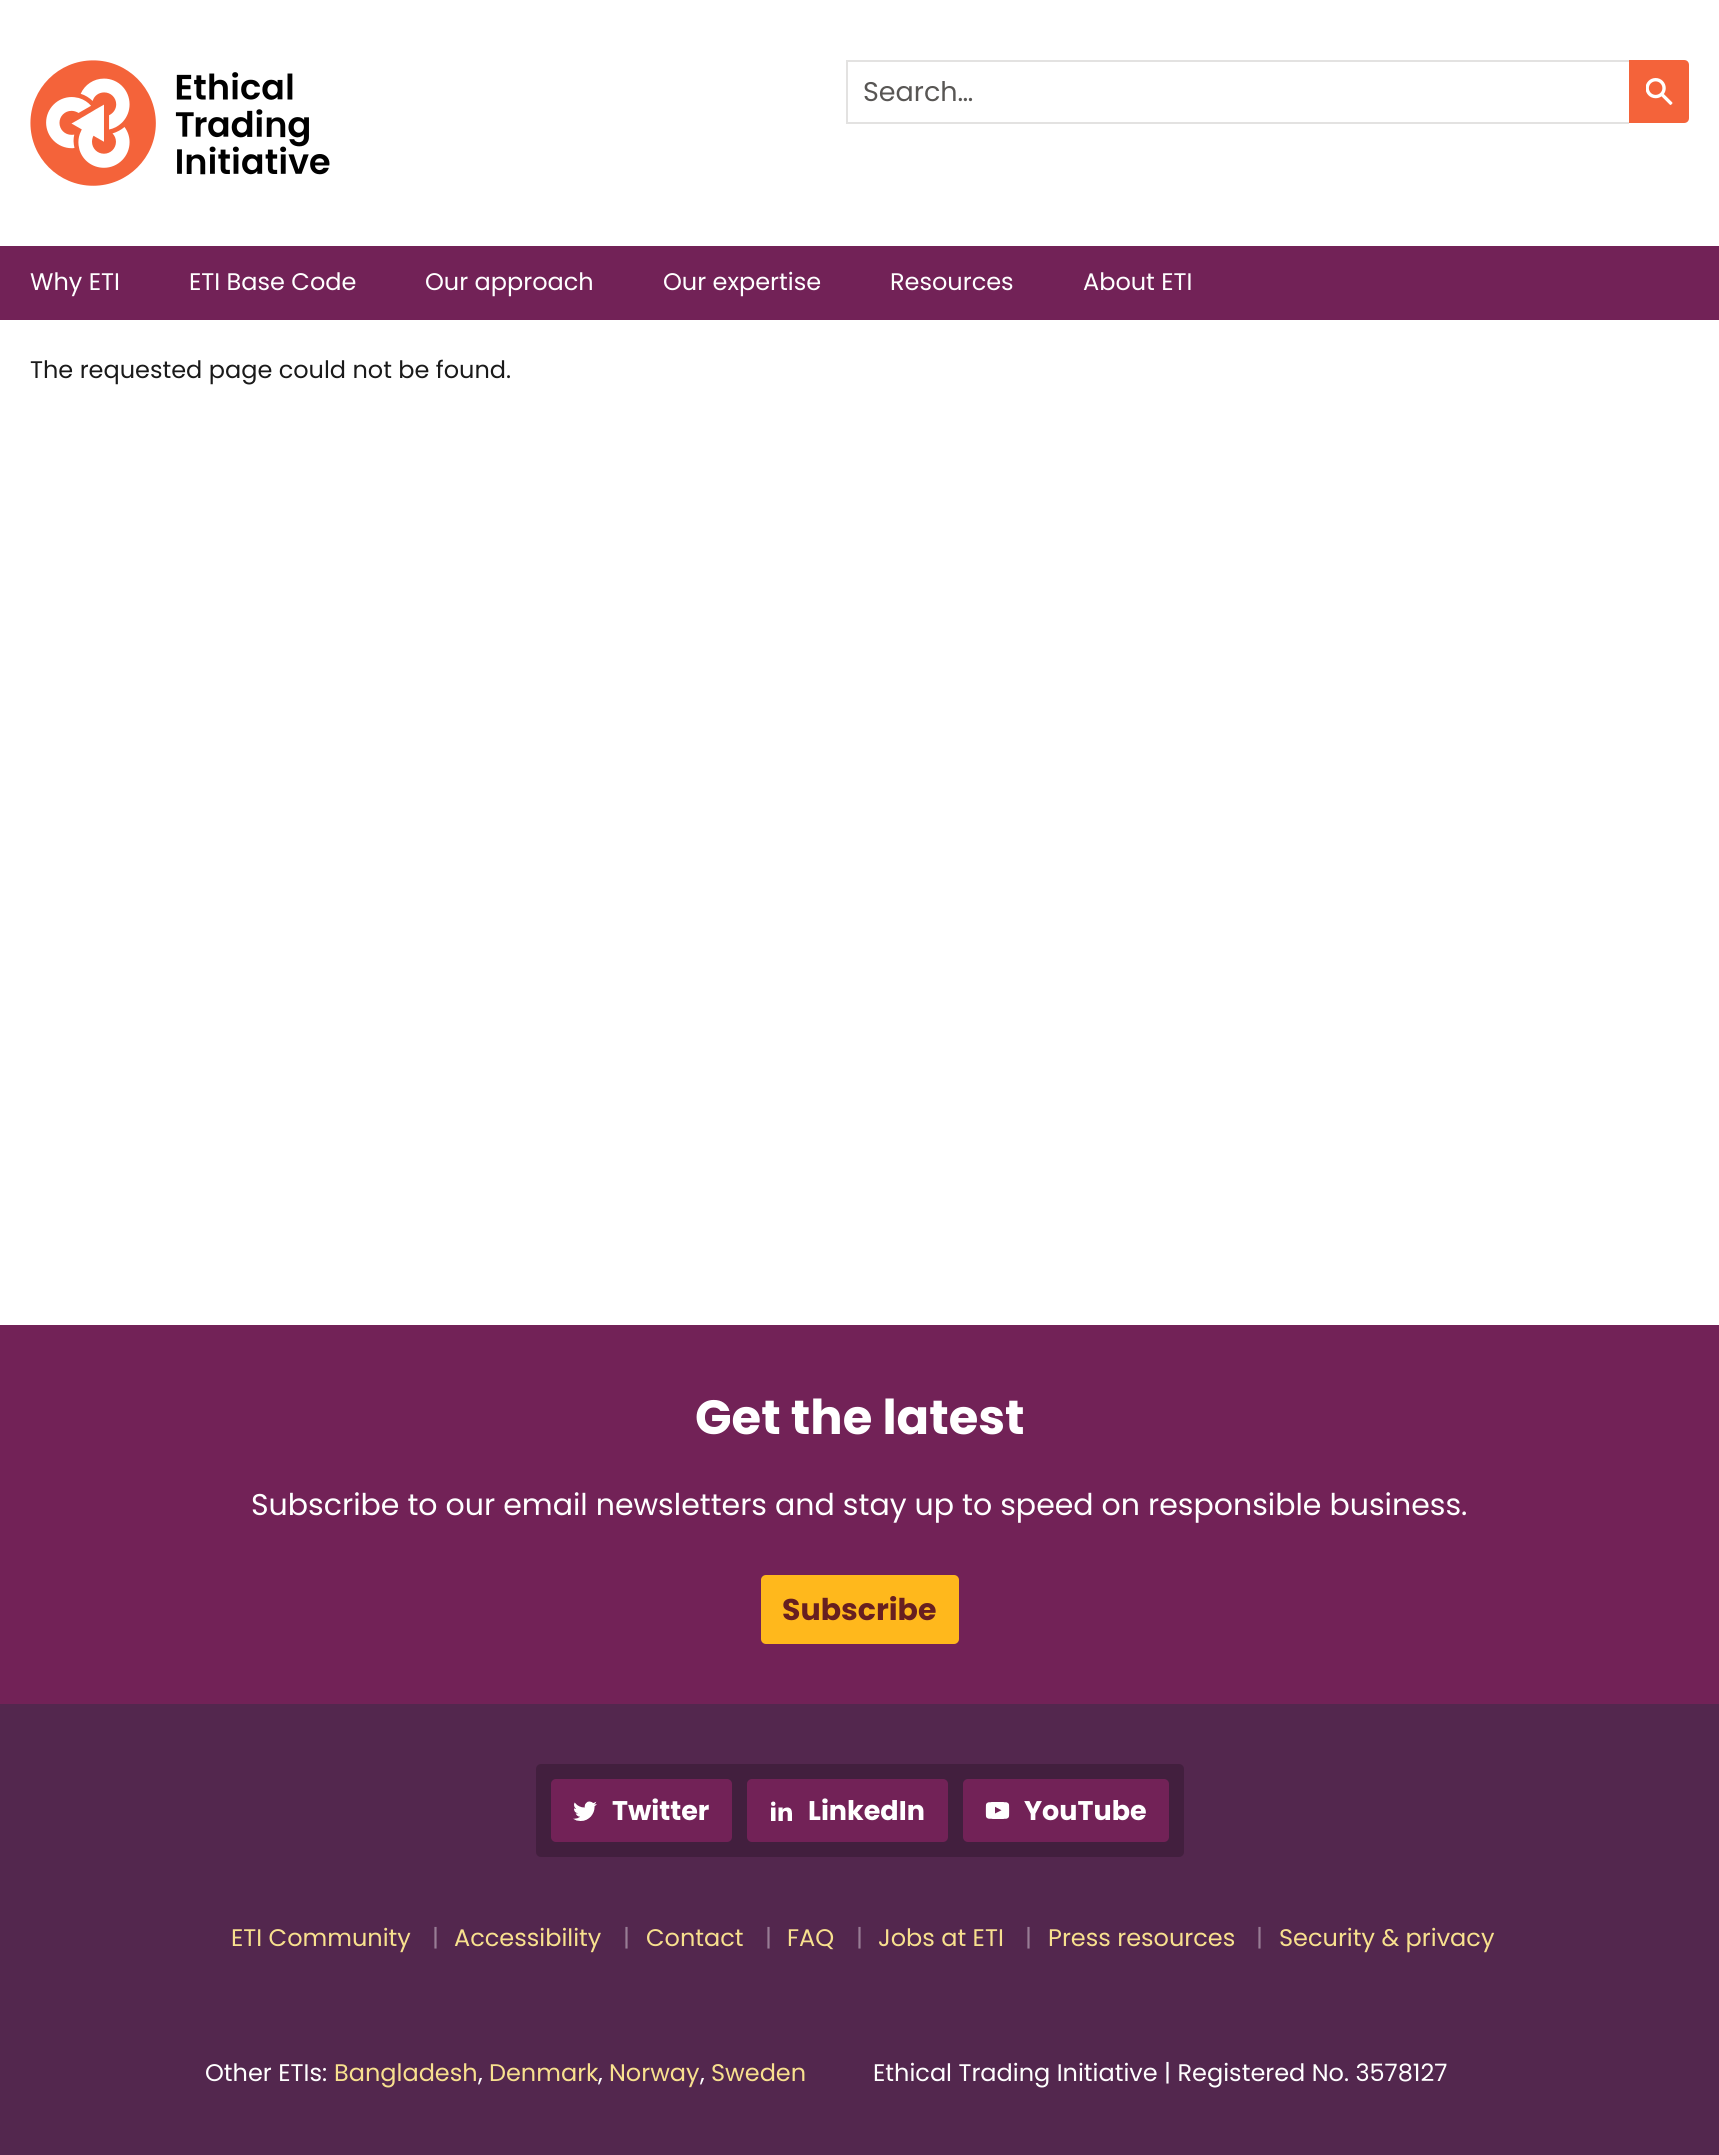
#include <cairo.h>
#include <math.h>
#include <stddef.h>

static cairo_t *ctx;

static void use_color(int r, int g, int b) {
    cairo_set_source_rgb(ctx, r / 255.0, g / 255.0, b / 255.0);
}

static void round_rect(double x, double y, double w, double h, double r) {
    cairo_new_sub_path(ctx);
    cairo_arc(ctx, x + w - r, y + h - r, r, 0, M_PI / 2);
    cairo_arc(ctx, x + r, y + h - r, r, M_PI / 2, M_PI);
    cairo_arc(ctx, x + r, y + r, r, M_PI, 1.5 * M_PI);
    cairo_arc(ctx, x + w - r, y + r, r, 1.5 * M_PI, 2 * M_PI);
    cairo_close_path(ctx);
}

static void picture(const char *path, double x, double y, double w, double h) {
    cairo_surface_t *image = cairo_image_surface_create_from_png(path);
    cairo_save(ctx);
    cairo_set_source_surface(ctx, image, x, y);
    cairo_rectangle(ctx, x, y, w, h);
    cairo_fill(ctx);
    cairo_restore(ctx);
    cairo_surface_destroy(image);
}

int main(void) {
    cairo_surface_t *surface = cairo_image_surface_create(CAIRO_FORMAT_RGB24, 1719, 2155);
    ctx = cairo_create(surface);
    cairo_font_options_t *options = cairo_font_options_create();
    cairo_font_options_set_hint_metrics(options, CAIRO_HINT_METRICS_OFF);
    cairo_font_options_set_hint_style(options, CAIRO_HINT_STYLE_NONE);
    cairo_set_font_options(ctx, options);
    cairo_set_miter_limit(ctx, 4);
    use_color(255, 255, 255);
    cairo_paint(ctx);
    picture("img1.png", 30, 60, 300, 126);
    use_color(227, 226, 225);
    cairo_rectangle(ctx, 846, 60, 783, 2);
    cairo_fill(ctx);
    cairo_rectangle(ctx, 846, 122, 783, 2);
    cairo_fill(ctx);
    cairo_rectangle(ctx, 846, 60, 2, 63);
    cairo_fill(ctx);
    cairo_select_font_face(ctx, "Poppins", CAIRO_FONT_SLANT_NORMAL, CAIRO_FONT_WEIGHT_NORMAL);
    cairo_set_font_size(ctx, 27);
    use_color(88, 86, 84);
    cairo_move_to(ctx, 863, 101);
    cairo_show_text(ctx, "Search…");
    use_color(244, 99, 58);
    cairo_new_path(ctx);
    cairo_move_to(ctx, 1629, 60);
    cairo_line_to(ctx, 1684, 60);
    cairo_curve_to(ctx, 1687, 60, 1689, 62, 1689, 65);
    cairo_line_to(ctx, 1689, 118);
    cairo_curve_to(ctx, 1689, 121, 1687, 123, 1684, 123);
    cairo_line_to(ctx, 1629, 123);
    cairo_close_path(ctx);
    cairo_fill(ctx);
    picture("img2.png", 1646, 78, 27, 27);
    use_color(114, 34, 87);
    cairo_rectangle(ctx, 0, 246, 1719, 74);
    cairo_fill(ctx);
    cairo_set_font_size(ctx, 24);
    use_color(255, 255, 255);
    cairo_move_to(ctx, 30, 290);
    cairo_show_text(ctx, "Why ETI");
    cairo_move_to(ctx, 189, 290);
    cairo_show_text(ctx, "ETI Base Code");
    cairo_move_to(ctx, 425, 290);
    cairo_show_text(ctx, "Our approach");
    cairo_move_to(ctx, 663, 290);
    cairo_show_text(ctx, "Our expertise");
    cairo_move_to(ctx, 890, 290);
    cairo_show_text(ctx, "Resources");
    cairo_move_to(ctx, 1083, 290);
    cairo_show_text(ctx, "About ETI");
    use_color(26, 26, 26);
    cairo_move_to(ctx, 30, 378);
    cairo_show_text(ctx, "The requested page could not be found.");
    use_color(114, 34, 87);
    cairo_rectangle(ctx, 0, 1325, 1719, 379);
    cairo_fill(ctx);
    cairo_select_font_face(ctx, "Poppins", CAIRO_FONT_SLANT_NORMAL, CAIRO_FONT_WEIGHT_BOLD);
    cairo_set_font_size(ctx, 48);
    use_color(255, 255, 255);
    cairo_move_to(ctx, 695, 1434);
    cairo_show_text(ctx, "Get the latest");
    cairo_select_font_face(ctx, "Poppins", CAIRO_FONT_SLANT_NORMAL, CAIRO_FONT_WEIGHT_NORMAL);
    cairo_set_font_size(ctx, 30);
    cairo_move_to(ctx, 251, 1515);
    cairo_show_text(ctx, "Subscribe to our email newsletters and stay up to speed on responsible business.");
    use_color(255, 184, 28);
    round_rect(761, 1575, 198, 69, 5);
    cairo_fill(ctx);
    cairo_select_font_face(ctx, "Poppins", CAIRO_FONT_SLANT_NORMAL, CAIRO_FONT_WEIGHT_BOLD);
    use_color(103, 31, 32);
    cairo_move_to(ctx, 782, 1620);
    cairo_show_text(ctx, "Subscribe");
    use_color(83, 39, 78);
    cairo_rectangle(ctx, 0, 1704, 1719, 451);
    cairo_fill(ctx);
    use_color(66, 31, 62);
    round_rect(536, 1764, 648, 93, 5);
    cairo_fill(ctx);
    use_color(114, 34, 87);
    round_rect(551, 1779, 181, 63, 5);
    cairo_fill(ctx);
    picture("img3.png", 573, 1801, 24, 20);
    cairo_set_font_size(ctx, 27);
    use_color(255, 255, 255);
    cairo_move_to(ctx, 612, 1820);
    cairo_show_text(ctx, "Twitter");
    use_color(114, 34, 87);
    round_rect(747, 1779, 201, 63, 5);
    cairo_fill(ctx);
    picture("img4.png", 771, 1801, 21, 20);
    use_color(255, 255, 255);
    cairo_move_to(ctx, 808, 1820);
    cairo_show_text(ctx, "LinkedIn");
    use_color(114, 34, 87);
    round_rect(963, 1779, 206, 63, 5);
    cairo_fill(ctx);
    picture("img5.png", 985, 1802, 25, 17);
    use_color(255, 255, 255);
    cairo_move_to(ctx, 1024, 1820);
    cairo_show_text(ctx, "YouTube");
    cairo_select_font_face(ctx, "Poppins", CAIRO_FONT_SLANT_NORMAL, CAIRO_FONT_WEIGHT_NORMAL);
    cairo_set_font_size(ctx, 24);
    use_color(248, 224, 142);
    cairo_move_to(ctx, 231, 1946);
    cairo_show_text(ctx, "ETI Community");
    use_color(152, 125, 149);
    cairo_move_to(ctx, 432, 1946);
    cairo_show_text(ctx, "|");
    use_color(248, 224, 142);
    cairo_move_to(ctx, 454, 1946);
    cairo_show_text(ctx, "Accessibility");
    use_color(152, 125, 149);
    cairo_move_to(ctx, 623, 1946);
    cairo_show_text(ctx, "|");
    use_color(248, 224, 142);
    cairo_move_to(ctx, 646, 1946);
    cairo_show_text(ctx, "Contact");
    use_color(152, 125, 149);
    cairo_move_to(ctx, 765, 1946);
    cairo_show_text(ctx, "|");
    use_color(248, 224, 142);
    cairo_move_to(ctx, 787, 1946);
    cairo_show_text(ctx, "FAQ");
    use_color(152, 125, 149);
    cairo_move_to(ctx, 856, 1946);
    cairo_show_text(ctx, "|");
    use_color(248, 224, 142);
    cairo_move_to(ctx, 878, 1946);
    cairo_show_text(ctx, "Jobs at ETI");
    use_color(152, 125, 149);
    cairo_move_to(ctx, 1025, 1946);
    cairo_show_text(ctx, "|");
    use_color(248, 224, 142);
    cairo_move_to(ctx, 1048, 1946);
    cairo_show_text(ctx, "Press resources");
    use_color(152, 125, 149);
    cairo_move_to(ctx, 1256, 1946);
    cairo_show_text(ctx, "|");
    use_color(248, 224, 142);
    cairo_move_to(ctx, 1279, 1946);
    cairo_show_text(ctx, "Security & privacy");
    use_color(255, 255, 255);
    cairo_move_to(ctx, 205, 2081);
    cairo_show_text(ctx, "Other ETIs:");
    use_color(248, 224, 142);
    cairo_move_to(ctx, 334, 2081);
    cairo_show_text(ctx, "Bangladesh");
    use_color(255, 255, 255);
    cairo_move_to(ctx, 478, 2081);
    cairo_show_text(ctx, ",");
    use_color(248, 224, 142);
    cairo_move_to(ctx, 489, 2081);
    cairo_show_text(ctx, "Denmark");
    use_color(255, 255, 255);
    cairo_move_to(ctx, 598, 2081);
    cairo_show_text(ctx, ",");
    use_color(248, 224, 142);
    cairo_move_to(ctx, 609, 2081);
    cairo_show_text(ctx, "Norway");
    use_color(255, 255, 255);
    cairo_move_to(ctx, 700, 2081);
    cairo_show_text(ctx, ",");
    use_color(248, 224, 142);
    cairo_move_to(ctx, 711, 2081);
    cairo_show_text(ctx, "Sweden");
    use_color(255, 255, 255);
    cairo_move_to(ctx, 873, 2081);
    cairo_show_text(ctx, "Ethical Trading Initiative | Registered No. 3578127");
    cairo_surface_write_to_png(surface, "result.png");
    cairo_font_options_destroy(options);
    cairo_destroy(ctx);
    cairo_surface_destroy(surface);
    return 0;
}
